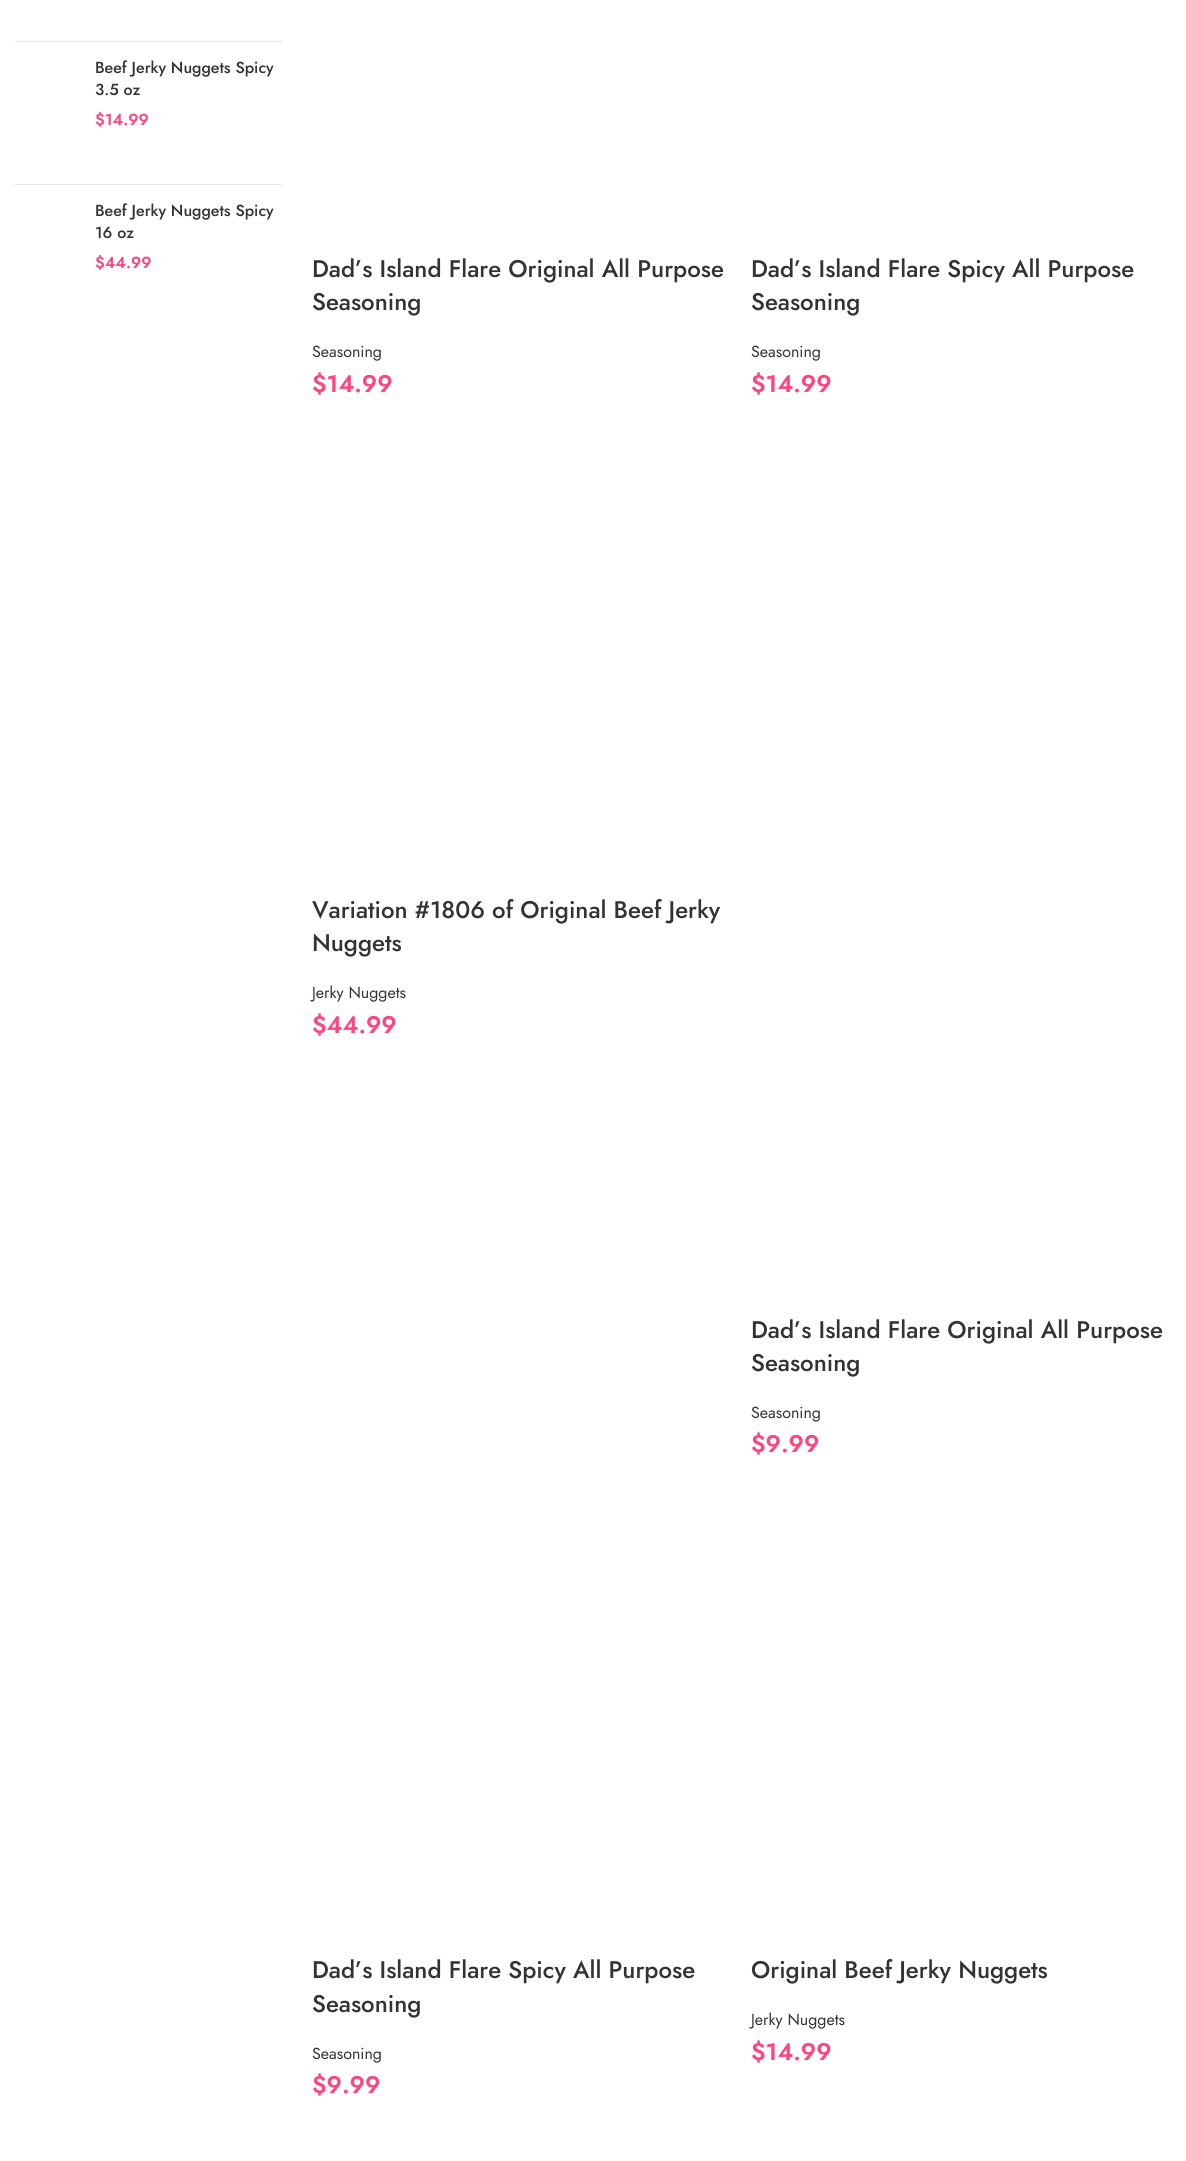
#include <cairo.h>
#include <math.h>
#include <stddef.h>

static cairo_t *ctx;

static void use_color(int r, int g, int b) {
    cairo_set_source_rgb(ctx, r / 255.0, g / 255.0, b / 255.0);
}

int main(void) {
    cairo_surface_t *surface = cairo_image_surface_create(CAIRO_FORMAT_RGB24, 1186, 2161);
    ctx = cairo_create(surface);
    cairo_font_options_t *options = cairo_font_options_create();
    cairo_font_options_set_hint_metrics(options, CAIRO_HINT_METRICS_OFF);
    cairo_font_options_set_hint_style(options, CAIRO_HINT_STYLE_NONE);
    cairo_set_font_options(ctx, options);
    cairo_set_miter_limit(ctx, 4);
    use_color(255, 255, 255);
    cairo_paint(ctx);
    use_color(228, 228, 228);
    cairo_rectangle(ctx, 15, 41, 267, 1);
    cairo_fill(ctx);
    cairo_rectangle(ctx, 15, 184, 267, 1);
    cairo_fill(ctx);
    cairo_select_font_face(ctx, "Jost Medium", CAIRO_FONT_SLANT_NORMAL, CAIRO_FONT_WEIGHT_NORMAL);
    cairo_set_font_size(ctx, 16);
    use_color(51, 51, 51);
    cairo_move_to(ctx, 95, 73);
    cairo_show_text(ctx, "Beef Jerky Nuggets Spicy");
    cairo_move_to(ctx, 95, 95);
    cairo_show_text(ctx, "3.5 oz");
    cairo_select_font_face(ctx, "Jost SemiBold", CAIRO_FONT_SLANT_NORMAL, CAIRO_FONT_WEIGHT_NORMAL);
    use_color(253, 70, 128);
    cairo_move_to(ctx, 95, 125);
    cairo_show_text(ctx, "$14.99");
    cairo_select_font_face(ctx, "Jost Medium", CAIRO_FONT_SLANT_NORMAL, CAIRO_FONT_WEIGHT_NORMAL);
    use_color(51, 51, 51);
    cairo_move_to(ctx, 95, 216);
    cairo_show_text(ctx, "Beef Jerky Nuggets Spicy");
    cairo_move_to(ctx, 95, 238);
    cairo_show_text(ctx, "16 oz");
    cairo_select_font_face(ctx, "Jost SemiBold", CAIRO_FONT_SLANT_NORMAL, CAIRO_FONT_WEIGHT_NORMAL);
    use_color(253, 70, 128);
    cairo_move_to(ctx, 95, 268);
    cairo_show_text(ctx, "$44.99");
    cairo_select_font_face(ctx, "Jost Medium", CAIRO_FONT_SLANT_NORMAL, CAIRO_FONT_WEIGHT_NORMAL);
    cairo_set_font_size(ctx, 24);
    use_color(51, 51, 51);
    cairo_move_to(ctx, 312, 277);
    cairo_show_text(ctx, "Dad’s Island Flare Original All Purpose");
    cairo_move_to(ctx, 312, 310);
    cairo_show_text(ctx, "Seasoning");
    cairo_select_font_face(ctx, "Jost", CAIRO_FONT_SLANT_NORMAL, CAIRO_FONT_WEIGHT_NORMAL);
    cairo_set_font_size(ctx, 16);
    cairo_move_to(ctx, 312, 357);
    cairo_show_text(ctx, "Seasoning");
    cairo_select_font_face(ctx, "Jost SemiBold", CAIRO_FONT_SLANT_NORMAL, CAIRO_FONT_WEIGHT_NORMAL);
    cairo_set_font_size(ctx, 24);
    use_color(253, 70, 128);
    cairo_move_to(ctx, 312, 392);
    cairo_show_text(ctx, "$14.99");
    cairo_select_font_face(ctx, "Jost Medium", CAIRO_FONT_SLANT_NORMAL, CAIRO_FONT_WEIGHT_NORMAL);
    use_color(51, 51, 51);
    cairo_move_to(ctx, 751, 277);
    cairo_show_text(ctx, "Dad’s Island Flare Spicy All Purpose");
    cairo_move_to(ctx, 751, 310);
    cairo_show_text(ctx, "Seasoning");
    cairo_select_font_face(ctx, "Jost", CAIRO_FONT_SLANT_NORMAL, CAIRO_FONT_WEIGHT_NORMAL);
    cairo_set_font_size(ctx, 16);
    cairo_move_to(ctx, 751, 357);
    cairo_show_text(ctx, "Seasoning");
    cairo_select_font_face(ctx, "Jost SemiBold", CAIRO_FONT_SLANT_NORMAL, CAIRO_FONT_WEIGHT_NORMAL);
    cairo_set_font_size(ctx, 24);
    use_color(253, 70, 128);
    cairo_move_to(ctx, 751, 392);
    cairo_show_text(ctx, "$14.99");
    cairo_select_font_face(ctx, "Jost Medium", CAIRO_FONT_SLANT_NORMAL, CAIRO_FONT_WEIGHT_NORMAL);
    use_color(51, 51, 51);
    cairo_move_to(ctx, 312, 918);
    cairo_show_text(ctx, "Variation #1806 of Original Beef Jerky");
    cairo_move_to(ctx, 312, 951);
    cairo_show_text(ctx, "Nuggets");
    cairo_select_font_face(ctx, "Jost", CAIRO_FONT_SLANT_NORMAL, CAIRO_FONT_WEIGHT_NORMAL);
    cairo_set_font_size(ctx, 16);
    cairo_move_to(ctx, 312, 998);
    cairo_show_text(ctx, "Jerky Nuggets");
    cairo_select_font_face(ctx, "Jost SemiBold", CAIRO_FONT_SLANT_NORMAL, CAIRO_FONT_WEIGHT_NORMAL);
    cairo_set_font_size(ctx, 24);
    use_color(253, 70, 128);
    cairo_move_to(ctx, 312, 1033);
    cairo_show_text(ctx, "$44.99");
    cairo_select_font_face(ctx, "Jost Medium", CAIRO_FONT_SLANT_NORMAL, CAIRO_FONT_WEIGHT_NORMAL);
    use_color(51, 51, 51);
    cairo_move_to(ctx, 751, 1338);
    cairo_show_text(ctx, "Dad’s Island Flare Original All Purpose");
    cairo_move_to(ctx, 751, 1371);
    cairo_show_text(ctx, "Seasoning");
    cairo_select_font_face(ctx, "Jost", CAIRO_FONT_SLANT_NORMAL, CAIRO_FONT_WEIGHT_NORMAL);
    cairo_set_font_size(ctx, 16);
    cairo_move_to(ctx, 751, 1418);
    cairo_show_text(ctx, "Seasoning");
    cairo_select_font_face(ctx, "Jost SemiBold", CAIRO_FONT_SLANT_NORMAL, CAIRO_FONT_WEIGHT_NORMAL);
    cairo_set_font_size(ctx, 24);
    use_color(253, 70, 128);
    cairo_move_to(ctx, 751, 1452);
    cairo_show_text(ctx, "$9.99");
    cairo_select_font_face(ctx, "Jost Medium", CAIRO_FONT_SLANT_NORMAL, CAIRO_FONT_WEIGHT_NORMAL);
    use_color(51, 51, 51);
    cairo_move_to(ctx, 312, 1978);
    cairo_show_text(ctx, "Dad’s Island Flare Spicy All Purpose");
    cairo_move_to(ctx, 312, 2012);
    cairo_show_text(ctx, "Seasoning");
    cairo_select_font_face(ctx, "Jost", CAIRO_FONT_SLANT_NORMAL, CAIRO_FONT_WEIGHT_NORMAL);
    cairo_set_font_size(ctx, 16);
    cairo_move_to(ctx, 312, 2059);
    cairo_show_text(ctx, "Seasoning");
    cairo_select_font_face(ctx, "Jost SemiBold", CAIRO_FONT_SLANT_NORMAL, CAIRO_FONT_WEIGHT_NORMAL);
    cairo_set_font_size(ctx, 24);
    use_color(253, 70, 128);
    cairo_move_to(ctx, 312, 2093);
    cairo_show_text(ctx, "$9.99");
    cairo_select_font_face(ctx, "Jost Medium", CAIRO_FONT_SLANT_NORMAL, CAIRO_FONT_WEIGHT_NORMAL);
    use_color(51, 51, 51);
    cairo_move_to(ctx, 751, 1978);
    cairo_show_text(ctx, "Original Beef Jerky Nuggets");
    cairo_select_font_face(ctx, "Jost", CAIRO_FONT_SLANT_NORMAL, CAIRO_FONT_WEIGHT_NORMAL);
    cairo_set_font_size(ctx, 16);
    cairo_move_to(ctx, 751, 2025);
    cairo_show_text(ctx, "Jerky Nuggets");
    cairo_select_font_face(ctx, "Jost SemiBold", CAIRO_FONT_SLANT_NORMAL, CAIRO_FONT_WEIGHT_NORMAL);
    cairo_set_font_size(ctx, 24);
    use_color(253, 70, 128);
    cairo_move_to(ctx, 751, 2060);
    cairo_show_text(ctx, "$14.99");
    cairo_surface_write_to_png(surface, "result.png");
    cairo_font_options_destroy(options);
    cairo_destroy(ctx);
    cairo_surface_destroy(surface);
    return 0;
}
